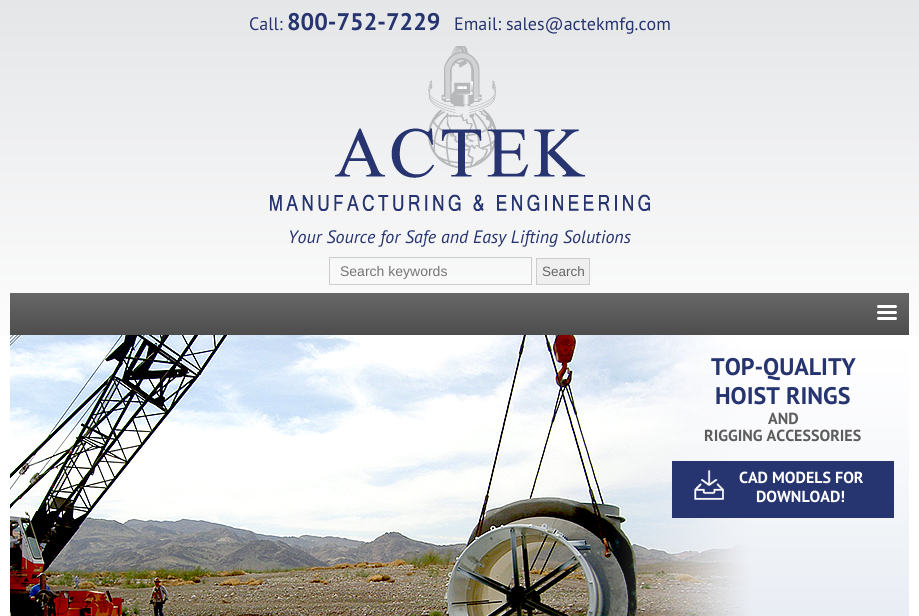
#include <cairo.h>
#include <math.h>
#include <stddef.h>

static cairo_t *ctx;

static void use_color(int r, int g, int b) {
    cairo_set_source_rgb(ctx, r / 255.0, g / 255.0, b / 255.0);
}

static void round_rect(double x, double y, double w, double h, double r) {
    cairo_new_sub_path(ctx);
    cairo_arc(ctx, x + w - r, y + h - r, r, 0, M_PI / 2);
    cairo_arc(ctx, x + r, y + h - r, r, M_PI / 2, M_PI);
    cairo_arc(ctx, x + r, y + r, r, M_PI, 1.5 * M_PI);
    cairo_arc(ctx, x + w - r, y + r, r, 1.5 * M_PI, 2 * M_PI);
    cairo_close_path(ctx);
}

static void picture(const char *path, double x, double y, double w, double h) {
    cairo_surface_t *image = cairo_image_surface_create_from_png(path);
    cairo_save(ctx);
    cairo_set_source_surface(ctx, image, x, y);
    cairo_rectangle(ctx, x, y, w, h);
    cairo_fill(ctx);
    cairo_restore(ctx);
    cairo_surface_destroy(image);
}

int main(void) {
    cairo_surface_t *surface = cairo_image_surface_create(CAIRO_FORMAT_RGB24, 919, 616);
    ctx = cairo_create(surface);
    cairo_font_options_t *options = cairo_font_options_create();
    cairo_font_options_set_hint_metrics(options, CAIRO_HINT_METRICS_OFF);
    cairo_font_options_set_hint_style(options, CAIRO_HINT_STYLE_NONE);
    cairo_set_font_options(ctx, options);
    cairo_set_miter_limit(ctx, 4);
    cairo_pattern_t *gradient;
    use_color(255, 255, 255);
    cairo_paint(ctx);
    gradient = cairo_pattern_create_linear(460, 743, 460, 0);
    cairo_pattern_add_color_stop_rgba(gradient, 0.5, 1, 1, 1, 1);
    cairo_pattern_add_color_stop_rgba(gradient, 1, 0.898, 0.902, 0.91, 1);
    cairo_set_source(ctx, gradient);
    cairo_pattern_destroy(gradient);
    cairo_rectangle(ctx, 0, 0, 919, 336);
    cairo_fill(ctx);
    cairo_select_font_face(ctx, "PT Sans", CAIRO_FONT_SLANT_NORMAL, CAIRO_FONT_WEIGHT_NORMAL);
    cairo_set_font_size(ctx, 18);
    use_color(38, 52, 112);
    cairo_move_to(ctx, 249, 30);
    cairo_show_text(ctx, "Call:");
    cairo_select_font_face(ctx, "PT Sans", CAIRO_FONT_SLANT_NORMAL, CAIRO_FONT_WEIGHT_BOLD);
    cairo_set_font_size(ctx, 24);
    cairo_move_to(ctx, 287, 30);
    cairo_show_text(ctx, "800-752-7229");
    cairo_select_font_face(ctx, "PT Sans", CAIRO_FONT_SLANT_NORMAL, CAIRO_FONT_WEIGHT_NORMAL);
    cairo_set_font_size(ctx, 18);
    cairo_move_to(ctx, 454, 30);
    cairo_show_text(ctx, "Email: sales@actekmfg.com");
    picture("img1.png", 270, 46, 380, 165);
    cairo_select_font_face(ctx, "PT Sans", CAIRO_FONT_SLANT_ITALIC, CAIRO_FONT_WEIGHT_NORMAL);
    cairo_move_to(ctx, 288, 243);
    cairo_show_text(ctx, "Your Source for Safe and Easy Lifting Solutions");
    cairo_rectangle(ctx, 329.5, 257.5, 202, 27);
    use_color(204, 204, 204);
    cairo_set_line_width(ctx, 1);
    cairo_stroke(ctx);
    cairo_select_font_face(ctx, "Liberation Sans", CAIRO_FONT_SLANT_NORMAL, CAIRO_FONT_WEIGHT_NORMAL);
    cairo_set_font_size(ctx, 14);
    use_color(117, 117, 117);
    cairo_move_to(ctx, 340, 276);
    cairo_show_text(ctx, "Search keywords");
    use_color(239, 239, 239);
    cairo_rectangle(ctx, 536.5, 258.5, 53, 26);
    cairo_fill_preserve(ctx);
    use_color(204, 204, 204);
    cairo_stroke(ctx);
    cairo_set_font_size(ctx, 13.5);
    use_color(102, 102, 102);
    cairo_move_to(ctx, 542, 276);
    cairo_show_text(ctx, "Search");
    gradient = cairo_pattern_create_linear(460, 335, 460, 293);
    cairo_pattern_add_color_stop_rgba(gradient, 0, 0.302, 0.302, 0.302, 1);
    cairo_pattern_add_color_stop_rgba(gradient, 1, 0.404, 0.404, 0.404, 1);
    cairo_set_source(ctx, gradient);
    cairo_pattern_destroy(gradient);
    cairo_rectangle(ctx, 10, 293, 899, 42);
    cairo_fill(ctx);
    use_color(255, 255, 255);
    round_rect(877, 311, 20, 3, 1.5);
    cairo_fill(ctx);
    round_rect(877, 305, 20, 3, 1.5);
    cairo_fill(ctx);
    round_rect(877, 317, 20, 3, 1.5);
    cairo_fill(ctx);
    picture("img2.png", 10, 335, 899, 281);
    cairo_select_font_face(ctx, "PT Sans", CAIRO_FONT_SLANT_NORMAL, CAIRO_FONT_WEIGHT_BOLD);
    cairo_set_font_size(ctx, 24);
    use_color(38, 52, 112);
    cairo_move_to(ctx, 711, 375);
    cairo_show_text(ctx, "TOP-QUALITY");
    cairo_move_to(ctx, 715, 404);
    cairo_show_text(ctx, "HOIST RINGS");
    cairo_set_font_size(ctx, 16);
    use_color(93, 93, 93);
    cairo_move_to(ctx, 768, 424);
    cairo_show_text(ctx, "AND");
    cairo_move_to(ctx, 704, 441);
    cairo_show_text(ctx, "RIGGING ACCESSORIES");
    use_color(38, 52, 112);
    cairo_rectangle(ctx, 672, 461, 222, 57);
    cairo_fill(ctx);
    picture("img3.png", 694, 470, 30, 30);
    use_color(255, 255, 255);
    cairo_move_to(ctx, 739, 483);
    cairo_show_text(ctx, "CAD MODELS FOR");
    cairo_move_to(ctx, 756, 502);
    cairo_show_text(ctx, "DOWNLOAD!");
    cairo_surface_write_to_png(surface, "result.png");
    cairo_font_options_destroy(options);
    cairo_destroy(ctx);
    cairo_surface_destroy(surface);
    return 0;
}
